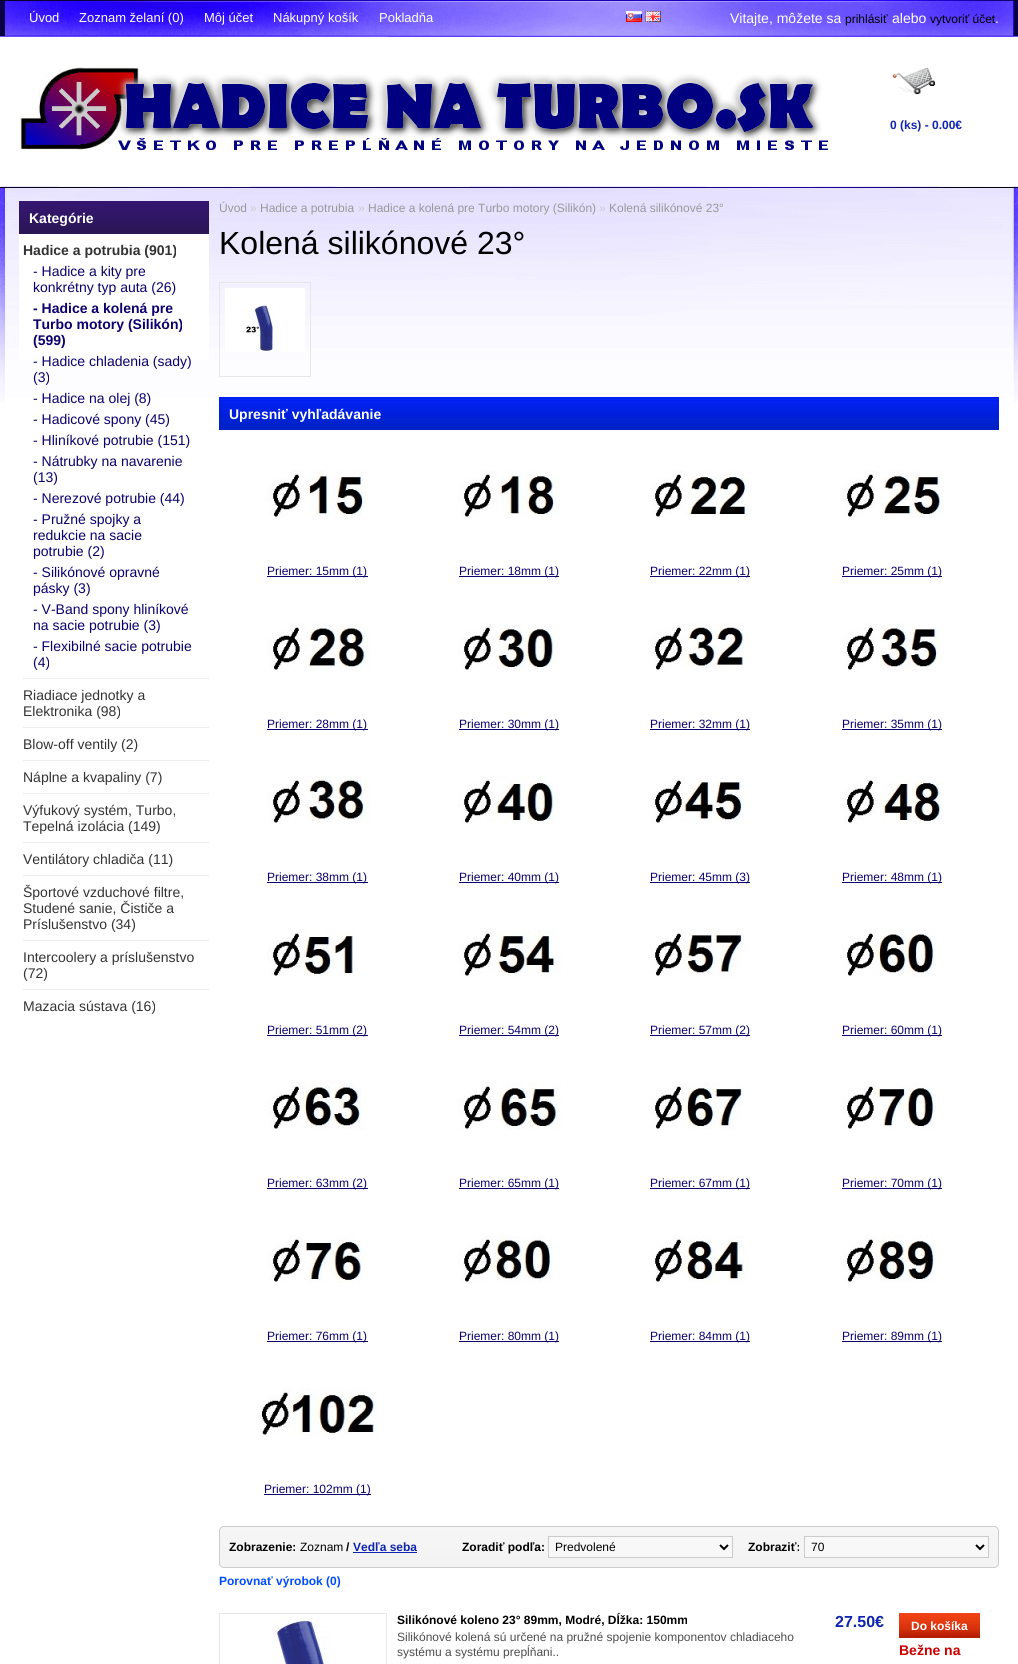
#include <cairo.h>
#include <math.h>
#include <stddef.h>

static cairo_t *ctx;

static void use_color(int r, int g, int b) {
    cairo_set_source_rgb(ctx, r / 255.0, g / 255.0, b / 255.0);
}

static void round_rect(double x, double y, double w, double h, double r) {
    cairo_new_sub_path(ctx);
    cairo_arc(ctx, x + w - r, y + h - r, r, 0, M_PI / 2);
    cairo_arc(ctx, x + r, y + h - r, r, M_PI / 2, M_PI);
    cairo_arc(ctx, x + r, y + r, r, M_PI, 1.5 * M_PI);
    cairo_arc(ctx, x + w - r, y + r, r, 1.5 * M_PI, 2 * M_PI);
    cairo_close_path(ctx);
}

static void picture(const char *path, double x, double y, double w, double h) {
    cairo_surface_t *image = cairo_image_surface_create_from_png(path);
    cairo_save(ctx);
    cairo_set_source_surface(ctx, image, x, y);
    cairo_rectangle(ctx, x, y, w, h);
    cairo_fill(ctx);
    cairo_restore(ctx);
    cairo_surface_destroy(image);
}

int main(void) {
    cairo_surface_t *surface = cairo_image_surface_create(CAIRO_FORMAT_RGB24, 1018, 1664);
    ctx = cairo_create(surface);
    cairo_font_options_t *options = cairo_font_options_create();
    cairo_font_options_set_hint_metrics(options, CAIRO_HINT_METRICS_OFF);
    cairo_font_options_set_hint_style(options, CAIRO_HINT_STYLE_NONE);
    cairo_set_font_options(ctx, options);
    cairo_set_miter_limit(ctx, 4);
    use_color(255, 255, 255);
    cairo_paint(ctx);
    picture("img1.png", 0, 0, 1018, 402);
    cairo_select_font_face(ctx, "Liberation Sans", CAIRO_FONT_SLANT_NORMAL, CAIRO_FONT_WEIGHT_NORMAL);
    cairo_set_font_size(ctx, 13);
    use_color(255, 255, 255);
    cairo_move_to(ctx, 29, 22);
    cairo_show_text(ctx, "Úvod");
    cairo_move_to(ctx, 79, 22);
    cairo_show_text(ctx, "Zoznam želaní (0)");
    cairo_move_to(ctx, 204, 22);
    cairo_show_text(ctx, "Môj účet");
    cairo_move_to(ctx, 273, 22);
    cairo_show_text(ctx, "Nákupný košík");
    cairo_move_to(ctx, 379, 22);
    cairo_show_text(ctx, "Pokladňa");
    cairo_set_font_size(ctx, 14);
    cairo_move_to(ctx, 730, 23);
    cairo_show_text(ctx, "Vitajte, môžete sa");
    cairo_set_font_size(ctx, 12);
    use_color(0, 0, 0);
    cairo_move_to(ctx, 845, 23);
    cairo_show_text(ctx, "prihlásiť");
    cairo_set_font_size(ctx, 14);
    use_color(255, 255, 255);
    cairo_move_to(ctx, 892, 23);
    cairo_show_text(ctx, "alebo");
    cairo_set_font_size(ctx, 12);
    use_color(0, 0, 0);
    cairo_move_to(ctx, 930, 23);
    cairo_show_text(ctx, "vytvoriť účet");
    cairo_set_font_size(ctx, 14);
    use_color(255, 255, 255);
    cairo_move_to(ctx, 995, 23);
    cairo_show_text(ctx, ".");
    picture("img2.png", 626, 11, 16, 11);
    picture("img3.png", 645, 11, 16, 11);
    picture("img4.png", 892, 67, 44, 28);
    cairo_select_font_face(ctx, "Liberation Sans", CAIRO_FONT_SLANT_NORMAL, CAIRO_FONT_WEIGHT_BOLD);
    cairo_set_font_size(ctx, 12);
    use_color(16, 37, 175);
    cairo_move_to(ctx, 890, 129);
    cairo_show_text(ctx, "0 (ks) - 0.00€");
    picture("img5.png", 19, 201, 190, 33);
    cairo_set_font_size(ctx, 14);
    use_color(255, 255, 255);
    cairo_move_to(ctx, 29, 223);
    cairo_show_text(ctx, "Kategórie");
    cairo_rectangle(ctx, 19, 234, 190, 126);
    cairo_fill(ctx);
    use_color(51, 51, 51);
    cairo_move_to(ctx, 23, 255);
    cairo_show_text(ctx, "Hadice a potrubia (901)");
    cairo_select_font_face(ctx, "Liberation Sans", CAIRO_FONT_SLANT_NORMAL, CAIRO_FONT_WEIGHT_NORMAL);
    use_color(11, 0, 108);
    cairo_move_to(ctx, 33, 276);
    cairo_show_text(ctx, "- Hadice a kity pre");
    cairo_move_to(ctx, 33, 292);
    cairo_show_text(ctx, "konkrétny typ auta (26)");
    cairo_select_font_face(ctx, "Liberation Sans", CAIRO_FONT_SLANT_NORMAL, CAIRO_FONT_WEIGHT_BOLD);
    cairo_move_to(ctx, 33, 313);
    cairo_show_text(ctx, "- Hadice a kolená pre");
    cairo_move_to(ctx, 33, 329);
    cairo_show_text(ctx, "Turbo motory (Silikón)");
    cairo_move_to(ctx, 33, 345);
    cairo_show_text(ctx, "(599)");
    cairo_select_font_face(ctx, "Liberation Sans", CAIRO_FONT_SLANT_NORMAL, CAIRO_FONT_WEIGHT_NORMAL);
    cairo_move_to(ctx, 33, 366);
    cairo_show_text(ctx, "- Hadice chladenia (sady)");
    cairo_move_to(ctx, 33, 382);
    cairo_show_text(ctx, "(3)");
    cairo_move_to(ctx, 33, 403);
    cairo_show_text(ctx, "- Hadice na olej (8)");
    cairo_move_to(ctx, 33, 424);
    cairo_show_text(ctx, "- Hadicové spony (45)");
    cairo_move_to(ctx, 33, 445);
    cairo_show_text(ctx, "- Hliníkové potrubie (151)");
    cairo_move_to(ctx, 33, 466);
    cairo_show_text(ctx, "- Nátrubky na navarenie");
    cairo_move_to(ctx, 33, 482);
    cairo_show_text(ctx, "(13)");
    cairo_move_to(ctx, 33, 503);
    cairo_show_text(ctx, "- Nerezové potrubie (44)");
    cairo_move_to(ctx, 33, 524);
    cairo_show_text(ctx, "- Pružné spojky a");
    cairo_move_to(ctx, 33, 540);
    cairo_show_text(ctx, "redukcie na sacie");
    cairo_move_to(ctx, 33, 556);
    cairo_show_text(ctx, "potrubie (2)");
    cairo_move_to(ctx, 33, 577);
    cairo_show_text(ctx, "- Silikónové opravné");
    cairo_move_to(ctx, 33, 593);
    cairo_show_text(ctx, "pásky (3)");
    cairo_move_to(ctx, 33, 614);
    cairo_show_text(ctx, "- V-Band spony hliníkové");
    cairo_move_to(ctx, 33, 630);
    cairo_show_text(ctx, "na sacie potrubie (3)");
    cairo_move_to(ctx, 33, 651);
    cairo_show_text(ctx, "- Flexibilné sacie potrubie");
    cairo_move_to(ctx, 33, 667);
    cairo_show_text(ctx, "(4)");
    use_color(238, 238, 238);
    cairo_rectangle(ctx, 23, 678, 186, 1);
    cairo_fill(ctx);
    use_color(51, 51, 51);
    cairo_move_to(ctx, 23, 700);
    cairo_show_text(ctx, "Riadiace jednotky a");
    cairo_move_to(ctx, 23, 716);
    cairo_show_text(ctx, "Elektronika (98)");
    use_color(238, 238, 238);
    cairo_rectangle(ctx, 23, 727, 186, 1);
    cairo_fill(ctx);
    use_color(51, 51, 51);
    cairo_move_to(ctx, 23, 749);
    cairo_show_text(ctx, "Blow-off ventily (2)");
    use_color(238, 238, 238);
    cairo_rectangle(ctx, 23, 760, 186, 1);
    cairo_fill(ctx);
    use_color(51, 51, 51);
    cairo_move_to(ctx, 23, 782);
    cairo_show_text(ctx, "Náplne a kvapaliny (7)");
    use_color(238, 238, 238);
    cairo_rectangle(ctx, 23, 793, 186, 1);
    cairo_fill(ctx);
    use_color(51, 51, 51);
    cairo_move_to(ctx, 23, 815);
    cairo_show_text(ctx, "Výfukový systém, Turbo,");
    cairo_move_to(ctx, 23, 831);
    cairo_show_text(ctx, "Tepelná izolácia (149)");
    use_color(238, 238, 238);
    cairo_rectangle(ctx, 23, 842, 186, 1);
    cairo_fill(ctx);
    use_color(51, 51, 51);
    cairo_move_to(ctx, 23, 864);
    cairo_show_text(ctx, "Ventilátory chladiča (11)");
    use_color(238, 238, 238);
    cairo_rectangle(ctx, 23, 875, 186, 1);
    cairo_fill(ctx);
    use_color(51, 51, 51);
    cairo_move_to(ctx, 23, 897);
    cairo_show_text(ctx, "Športové vzduchové filtre,");
    cairo_move_to(ctx, 23, 913);
    cairo_show_text(ctx, "Studené sanie, Čističe a");
    cairo_move_to(ctx, 23, 929);
    cairo_show_text(ctx, "Príslušenstvo (34)");
    use_color(238, 238, 238);
    cairo_rectangle(ctx, 23, 940, 186, 1);
    cairo_fill(ctx);
    use_color(51, 51, 51);
    cairo_move_to(ctx, 23, 962);
    cairo_show_text(ctx, "Intercoolery a príslušenstvo");
    cairo_move_to(ctx, 23, 978);
    cairo_show_text(ctx, "(72)");
    use_color(238, 238, 238);
    cairo_rectangle(ctx, 23, 989, 186, 1);
    cairo_fill(ctx);
    use_color(51, 51, 51);
    cairo_move_to(ctx, 23, 1011);
    cairo_show_text(ctx, "Mazacia sústava (16)");
    cairo_set_font_size(ctx, 12);
    use_color(153, 153, 153);
    cairo_move_to(ctx, 219, 212);
    cairo_show_text(ctx, "Úvod");
    use_color(204, 204, 204);
    cairo_move_to(ctx, 250, 212);
    cairo_show_text(ctx, "»");
    use_color(153, 153, 153);
    cairo_move_to(ctx, 260, 212);
    cairo_show_text(ctx, "Hadice a potrubia");
    use_color(204, 204, 204);
    cairo_move_to(ctx, 358, 212);
    cairo_show_text(ctx, "»");
    use_color(153, 153, 153);
    cairo_move_to(ctx, 368, 212);
    cairo_show_text(ctx, "Hadice a kolená pre Turbo motory (Silikón)");
    use_color(204, 204, 204);
    cairo_move_to(ctx, 599, 212);
    cairo_show_text(ctx, "»");
    use_color(153, 153, 153);
    cairo_move_to(ctx, 609, 212);
    cairo_show_text(ctx, "Kolená silikónové 23°");
    cairo_set_font_size(ctx, 32);
    use_color(0, 0, 0);
    cairo_move_to(ctx, 219, 254);
    cairo_show_text(ctx, "Kolená silikónové 23°");
    cairo_rectangle(ctx, 219.5, 282.5, 91, 94);
    use_color(231, 231, 231);
    cairo_set_line_width(ctx, 1);
    cairo_stroke(ctx);
    picture("img6.png", 225, 288, 80, 64);
    picture("img7.png", 219, 397, 780, 33);
    cairo_select_font_face(ctx, "Liberation Sans", CAIRO_FONT_SLANT_NORMAL, CAIRO_FONT_WEIGHT_BOLD);
    cairo_set_font_size(ctx, 14);
    use_color(255, 255, 255);
    cairo_move_to(ctx, 229, 419);
    cairo_show_text(ctx, "Upresniť vyhľadávanie");
    picture("img8.png", 267, 470, 100, 48);
    use_color(11, 0, 108);
    cairo_rectangle(ctx, 267, 576, 101, 1);
    cairo_fill(ctx);
    cairo_select_font_face(ctx, "Liberation Sans", CAIRO_FONT_SLANT_NORMAL, CAIRO_FONT_WEIGHT_NORMAL);
    cairo_set_font_size(ctx, 12);
    cairo_move_to(ctx, 267, 575);
    cairo_show_text(ctx, "Priemer: 15mm (1)");
    picture("img9.png", 458, 470, 103, 48);
    cairo_rectangle(ctx, 459, 576, 100, 1);
    cairo_fill(ctx);
    cairo_move_to(ctx, 459, 575);
    cairo_show_text(ctx, "Priemer: 18mm (1)");
    picture("img10.png", 649, 470, 103, 48);
    cairo_rectangle(ctx, 650, 576, 100, 1);
    cairo_fill(ctx);
    cairo_move_to(ctx, 650, 575);
    cairo_show_text(ctx, "Priemer: 22mm (1)");
    picture("img11.png", 841, 470, 103, 48);
    cairo_rectangle(ctx, 842, 576, 100, 1);
    cairo_fill(ctx);
    cairo_move_to(ctx, 842, 575);
    cairo_show_text(ctx, "Priemer: 25mm (1)");
    picture("img12.png", 267, 623, 103, 48);
    cairo_rectangle(ctx, 267, 729, 101, 1);
    cairo_fill(ctx);
    cairo_move_to(ctx, 267, 728);
    cairo_show_text(ctx, "Priemer: 28mm (1)");
    picture("img13.png", 458, 623, 103, 48);
    cairo_rectangle(ctx, 459, 729, 100, 1);
    cairo_fill(ctx);
    cairo_move_to(ctx, 459, 728);
    cairo_show_text(ctx, "Priemer: 30mm (1)");
    picture("img14.png", 649, 623, 99, 48);
    cairo_rectangle(ctx, 650, 729, 100, 1);
    cairo_fill(ctx);
    cairo_move_to(ctx, 650, 728);
    cairo_show_text(ctx, "Priemer: 32mm (1)");
    picture("img15.png", 841, 623, 102, 48);
    cairo_rectangle(ctx, 842, 729, 100, 1);
    cairo_fill(ctx);
    cairo_move_to(ctx, 842, 728);
    cairo_show_text(ctx, "Priemer: 35mm (1)");
    picture("img16.png", 267, 776, 103, 48);
    cairo_rectangle(ctx, 267, 882, 101, 1);
    cairo_fill(ctx);
    cairo_move_to(ctx, 267, 881);
    cairo_show_text(ctx, "Priemer: 38mm (1)");
    picture("img17.png", 458, 776, 103, 48);
    cairo_rectangle(ctx, 459, 882, 100, 1);
    cairo_fill(ctx);
    cairo_move_to(ctx, 459, 881);
    cairo_show_text(ctx, "Priemer: 40mm (1)");
    picture("img18.png", 649, 776, 99, 48);
    cairo_rectangle(ctx, 650, 882, 100, 1);
    cairo_fill(ctx);
    cairo_move_to(ctx, 650, 881);
    cairo_show_text(ctx, "Priemer: 45mm (3)");
    picture("img19.png", 841, 776, 103, 48);
    cairo_rectangle(ctx, 842, 882, 100, 1);
    cairo_fill(ctx);
    cairo_move_to(ctx, 842, 881);
    cairo_show_text(ctx, "Priemer: 48mm (1)");
    picture("img20.png", 267, 929, 87, 48);
    cairo_rectangle(ctx, 267, 1035, 101, 1);
    cairo_fill(ctx);
    cairo_move_to(ctx, 267, 1034);
    cairo_show_text(ctx, "Priemer: 51mm (2)");
    picture("img21.png", 458, 929, 103, 48);
    cairo_rectangle(ctx, 459, 1035, 100, 1);
    cairo_fill(ctx);
    cairo_move_to(ctx, 459, 1034);
    cairo_show_text(ctx, "Priemer: 54mm (2)");
    picture("img22.png", 649, 929, 95, 48);
    cairo_rectangle(ctx, 650, 1035, 100, 1);
    cairo_fill(ctx);
    cairo_move_to(ctx, 650, 1034);
    cairo_show_text(ctx, "Priemer: 57mm (2)");
    picture("img23.png", 841, 929, 95, 48);
    cairo_rectangle(ctx, 842, 1035, 100, 1);
    cairo_fill(ctx);
    cairo_move_to(ctx, 842, 1034);
    cairo_show_text(ctx, "Priemer: 60mm (1)");
    picture("img24.png", 267, 1082, 99, 48);
    cairo_rectangle(ctx, 267, 1188, 101, 1);
    cairo_fill(ctx);
    cairo_move_to(ctx, 267, 1187);
    cairo_show_text(ctx, "Priemer: 63mm (2)");
    picture("img25.png", 458, 1082, 103, 48);
    cairo_rectangle(ctx, 459, 1188, 100, 1);
    cairo_fill(ctx);
    cairo_move_to(ctx, 459, 1187);
    cairo_show_text(ctx, "Priemer: 65mm (1)");
    picture("img26.png", 649, 1082, 95, 48);
    cairo_rectangle(ctx, 650, 1188, 100, 1);
    cairo_fill(ctx);
    cairo_move_to(ctx, 650, 1187);
    cairo_show_text(ctx, "Priemer: 67mm (1)");
    picture("img27.png", 841, 1082, 95, 48);
    cairo_rectangle(ctx, 842, 1188, 100, 1);
    cairo_fill(ctx);
    cairo_move_to(ctx, 842, 1187);
    cairo_show_text(ctx, "Priemer: 70mm (1)");
    picture("img28.png", 267, 1235, 99, 48);
    cairo_rectangle(ctx, 267, 1341, 101, 1);
    cairo_fill(ctx);
    cairo_move_to(ctx, 267, 1340);
    cairo_show_text(ctx, "Priemer: 76mm (1)");
    picture("img29.png", 458, 1235, 95, 48);
    cairo_rectangle(ctx, 459, 1341, 100, 1);
    cairo_fill(ctx);
    cairo_move_to(ctx, 459, 1340);
    cairo_show_text(ctx, "Priemer: 80mm (1)");
    picture("img30.png", 649, 1235, 99, 48);
    cairo_rectangle(ctx, 650, 1341, 100, 1);
    cairo_fill(ctx);
    cairo_move_to(ctx, 650, 1340);
    cairo_show_text(ctx, "Priemer: 84mm (1)");
    picture("img31.png", 841, 1235, 97, 48);
    cairo_rectangle(ctx, 842, 1341, 100, 1);
    cairo_fill(ctx);
    cairo_move_to(ctx, 842, 1340);
    cairo_show_text(ctx, "Priemer: 89mm (1)");
    picture("img32.png", 258, 1388, 120, 48);
    cairo_rectangle(ctx, 264, 1494, 107, 1);
    cairo_fill(ctx);
    cairo_move_to(ctx, 264, 1493);
    cairo_show_text(ctx, "Priemer: 102mm (1)");
    picture("img33.png", 219, 1526, 780, 42);
    round_rect(219.5, 1526.5, 779, 41, 4.5);
    use_color(204, 204, 204);
    cairo_stroke(ctx);
    cairo_select_font_face(ctx, "Liberation Sans", CAIRO_FONT_SLANT_NORMAL, CAIRO_FONT_WEIGHT_BOLD);
    use_color(0, 0, 0);
    cairo_move_to(ctx, 229, 1551);
    cairo_show_text(ctx, "Zobrazenie:");
    cairo_select_font_face(ctx, "Liberation Sans", CAIRO_FONT_SLANT_NORMAL, CAIRO_FONT_WEIGHT_NORMAL);
    cairo_move_to(ctx, 300, 1551);
    cairo_show_text(ctx, "Zoznam");
    cairo_select_font_face(ctx, "Liberation Sans", CAIRO_FONT_SLANT_NORMAL, CAIRO_FONT_WEIGHT_BOLD);
    cairo_move_to(ctx, 346, 1551);
    cairo_show_text(ctx, "/");
    use_color(16, 37, 175);
    cairo_move_to(ctx, 353, 1551);
    cairo_show_text(ctx, "Vedľa seba");
    cairo_rectangle(ctx, 353, 1552, 64, 1);
    cairo_fill(ctx);
    use_color(0, 0, 0);
    cairo_move_to(ctx, 462, 1551);
    cairo_show_text(ctx, "Zoradiť podľa:");
    use_color(248, 248, 248);
    cairo_rectangle(ctx, 548.5, 1536.5, 184, 21);
    cairo_fill_preserve(ctx);
    use_color(204, 204, 204);
    cairo_stroke(ctx);
    cairo_new_path(ctx);
    cairo_move_to(ctx, 720, 1545);
    cairo_line_to(ctx, 724, 1549);
    cairo_line_to(ctx, 728, 1545);
    use_color(0, 0, 0);
    cairo_set_line_width(ctx, 2);
    cairo_stroke(ctx);
    cairo_select_font_face(ctx, "Liberation Sans", CAIRO_FONT_SLANT_NORMAL, CAIRO_FONT_WEIGHT_NORMAL);
    cairo_move_to(ctx, 555, 1551);
    cairo_show_text(ctx, "Predvolené");
    cairo_select_font_face(ctx, "Liberation Sans", CAIRO_FONT_SLANT_NORMAL, CAIRO_FONT_WEIGHT_BOLD);
    cairo_move_to(ctx, 748, 1551);
    cairo_show_text(ctx, "Zobraziť:");
    use_color(248, 248, 248);
    cairo_rectangle(ctx, 804.5, 1536.5, 184, 21);
    cairo_fill_preserve(ctx);
    use_color(204, 204, 204);
    cairo_set_line_width(ctx, 1);
    cairo_stroke(ctx);
    cairo_new_path(ctx);
    cairo_move_to(ctx, 976, 1545);
    cairo_line_to(ctx, 980, 1549);
    cairo_line_to(ctx, 984, 1545);
    use_color(0, 0, 0);
    cairo_set_line_width(ctx, 2);
    cairo_stroke(ctx);
    cairo_select_font_face(ctx, "Liberation Sans", CAIRO_FONT_SLANT_NORMAL, CAIRO_FONT_WEIGHT_NORMAL);
    cairo_move_to(ctx, 811, 1551);
    cairo_show_text(ctx, "70");
    cairo_select_font_face(ctx, "Liberation Sans", CAIRO_FONT_SLANT_NORMAL, CAIRO_FONT_WEIGHT_BOLD);
    use_color(0, 77, 255);
    cairo_move_to(ctx, 219, 1585);
    cairo_show_text(ctx, "Porovnať výrobok (0)");
    cairo_rectangle(ctx, 219.5, 1613.5, 167, 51);
    use_color(231, 231, 231);
    cairo_set_line_width(ctx, 1);
    cairo_stroke(ctx);
    picture("img34.png", 271, 1617, 62, 47);
    use_color(0, 0, 0);
    cairo_move_to(ctx, 397, 1624);
    cairo_show_text(ctx, "Silikónové koleno 23° 89mm, Modré, Dĺžka: 150mm");
    cairo_set_font_size(ctx, 16);
    use_color(16, 37, 175);
    cairo_move_to(ctx, 835, 1627);
    cairo_show_text(ctx, "27.50€");
    cairo_select_font_face(ctx, "Liberation Sans", CAIRO_FONT_SLANT_NORMAL, CAIRO_FONT_WEIGHT_NORMAL);
    cairo_set_font_size(ctx, 12);
    use_color(77, 77, 77);
    cairo_move_to(ctx, 397, 1641);
    cairo_show_text(ctx, "Silikónové kolená sú určené na pružné spojenie komponentov chladiaceho");
    cairo_move_to(ctx, 397, 1656);
    cairo_show_text(ctx, "systému a systému prepĺňani..");
    picture("img35.png", 899, 1613, 81, 25);
    cairo_select_font_face(ctx, "Liberation Sans", CAIRO_FONT_SLANT_NORMAL, CAIRO_FONT_WEIGHT_BOLD);
    use_color(255, 255, 255);
    cairo_move_to(ctx, 911, 1630);
    cairo_show_text(ctx, "Do košíka");
    cairo_set_font_size(ctx, 14);
    use_color(204, 0, 0);
    cairo_move_to(ctx, 899, 1655);
    cairo_show_text(ctx, "Bežne na");
    cairo_surface_write_to_png(surface, "result.png");
    cairo_font_options_destroy(options);
    cairo_destroy(ctx);
    cairo_surface_destroy(surface);
    return 0;
}
